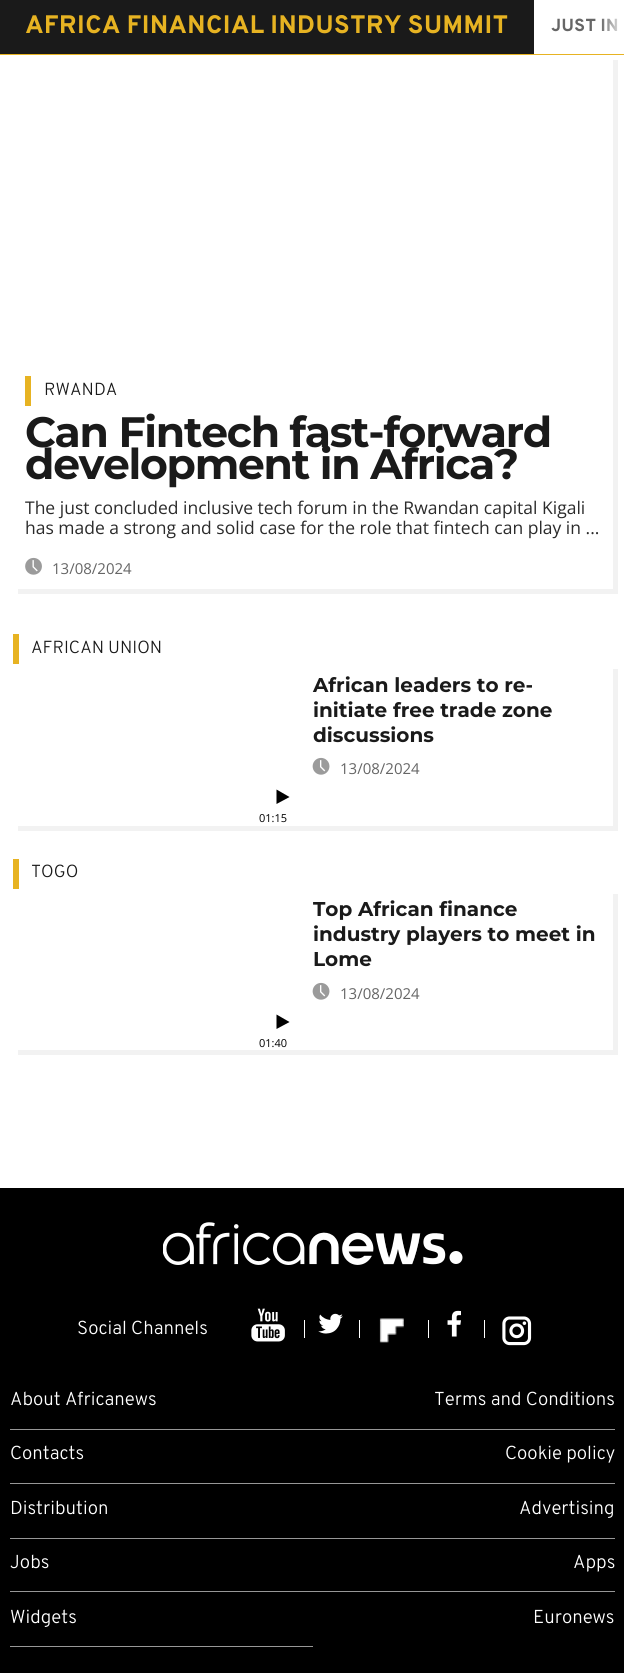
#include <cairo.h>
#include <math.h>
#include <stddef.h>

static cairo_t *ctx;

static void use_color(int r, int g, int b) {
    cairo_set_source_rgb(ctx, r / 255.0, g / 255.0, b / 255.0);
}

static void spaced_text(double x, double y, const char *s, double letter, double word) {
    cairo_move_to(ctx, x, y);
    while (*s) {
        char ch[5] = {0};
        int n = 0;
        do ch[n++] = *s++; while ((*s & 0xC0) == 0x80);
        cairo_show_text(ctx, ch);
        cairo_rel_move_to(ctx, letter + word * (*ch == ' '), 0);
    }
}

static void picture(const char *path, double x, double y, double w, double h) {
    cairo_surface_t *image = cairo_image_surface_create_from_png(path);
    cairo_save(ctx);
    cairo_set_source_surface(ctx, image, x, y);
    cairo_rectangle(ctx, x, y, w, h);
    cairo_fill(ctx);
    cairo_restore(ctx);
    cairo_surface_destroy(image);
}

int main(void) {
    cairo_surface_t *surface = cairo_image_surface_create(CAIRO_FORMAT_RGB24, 624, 1673);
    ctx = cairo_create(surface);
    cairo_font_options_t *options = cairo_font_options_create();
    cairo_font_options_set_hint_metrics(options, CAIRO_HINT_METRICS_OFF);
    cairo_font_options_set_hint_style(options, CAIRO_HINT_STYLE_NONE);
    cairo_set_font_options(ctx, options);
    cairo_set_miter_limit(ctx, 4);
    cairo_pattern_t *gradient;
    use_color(255, 255, 255);
    cairo_paint(ctx);
    use_color(231, 179, 34);
    cairo_rectangle(ctx, 0, 54, 624, 1);
    cairo_fill(ctx);
    use_color(26, 26, 26);
    cairo_rectangle(ctx, 0, 0, 534, 54);
    cairo_fill(ctx);
    cairo_select_font_face(ctx, "Overpass", CAIRO_FONT_SLANT_NORMAL, CAIRO_FONT_WEIGHT_BOLD);
    cairo_set_font_size(ctx, 25.3);
    use_color(231, 179, 34);
    cairo_move_to(ctx, 25, 33);
    cairo_show_text(ctx, "AFRICA FINANCIAL INDUSTRY SUMMIT");
    cairo_set_font_size(ctx, 17.5);
    use_color(102, 102, 102);
    cairo_move_to(ctx, 551, 31);
    cairo_show_text(ctx, "JUST IN");
    gradient = cairo_pattern_create_linear(600, 26, 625, 26);
    cairo_pattern_add_color_stop_rgba(gradient, 0, 1, 1, 1, 0);
    cairo_pattern_add_color_stop_rgba(gradient, 1, 1, 1, 1, 1);
    cairo_set_source(ctx, gradient);
    cairo_pattern_destroy(gradient);
    cairo_rectangle(ctx, 602, 18, 16, 13);
    cairo_fill(ctx);
    use_color(242, 242, 242);
    cairo_new_path(ctx);
    cairo_move_to(ctx, 18, 589);
    cairo_line_to(ctx, 18, 594);
    cairo_line_to(ctx, 618, 594);
    cairo_line_to(ctx, 618, 60);
    cairo_line_to(ctx, 612, 60);
    cairo_line_to(ctx, 612, 589);
    cairo_close_path(ctx);
    cairo_fill(ctx);
    use_color(255, 255, 255);
    cairo_rectangle(ctx, 612, 60, 1, 529);
    cairo_fill(ctx);
    use_color(231, 179, 34);
    cairo_rectangle(ctx, 25, 376, 6, 30);
    cairo_fill(ctx);
    cairo_select_font_face(ctx, "Overpass Light", CAIRO_FONT_SLANT_NORMAL, CAIRO_FONT_WEIGHT_NORMAL);
    use_color(26, 26, 26);
    cairo_move_to(ctx, 44, 395);
    cairo_show_text(ctx, "RWANDA");
    cairo_select_font_face(ctx, "Montserrat Thin", CAIRO_FONT_SLANT_NORMAL, CAIRO_FONT_WEIGHT_NORMAL);
    cairo_set_font_size(ctx, 42.5);
    spaced_text(25, 447, "Can Fintech fast-forward", -1.25, 0);
    spaced_text(25, 479, "development in Africa?", -1.25, 0);
    cairo_select_font_face(ctx, "Open Sans", CAIRO_FONT_SLANT_NORMAL, CAIRO_FONT_WEIGHT_NORMAL);
    cairo_set_font_size(ctx, 17.5);
    use_color(43, 43, 43);
    cairo_move_to(ctx, 25, 514);
    cairo_show_text(ctx, "The just concluded inclusive tech forum in the Rwandan capital Kigali");
    cairo_move_to(ctx, 25, 534);
    cairo_show_text(ctx, "has made a strong and solid case for the role that fintech can play in ...");
    picture("img1.png", 25, 557, 17, 18);
    cairo_set_font_size(ctx, 15);
    use_color(102, 102, 102);
    cairo_move_to(ctx, 52, 574);
    cairo_show_text(ctx, "13/08/2024");
    use_color(242, 242, 242);
    cairo_new_path(ctx);
    cairo_move_to(ctx, 18, 826);
    cairo_line_to(ctx, 18, 831);
    cairo_line_to(ctx, 618, 831);
    cairo_line_to(ctx, 618, 669);
    cairo_line_to(ctx, 612, 669);
    cairo_line_to(ctx, 612, 826);
    cairo_close_path(ctx);
    cairo_fill(ctx);
    use_color(255, 255, 255);
    cairo_rectangle(ctx, 612, 669, 1, 157);
    cairo_fill(ctx);
    use_color(231, 179, 34);
    cairo_rectangle(ctx, 13, 634, 6, 30);
    cairo_fill(ctx);
    cairo_select_font_face(ctx, "Overpass Light", CAIRO_FONT_SLANT_NORMAL, CAIRO_FONT_WEIGHT_NORMAL);
    cairo_set_font_size(ctx, 17.5);
    use_color(26, 26, 26);
    cairo_move_to(ctx, 31, 653);
    cairo_show_text(ctx, "AFRICAN UNION");
    cairo_select_font_face(ctx, "Montserrat Thin", CAIRO_FONT_SLANT_NORMAL, CAIRO_FONT_WEIGHT_NORMAL);
    cairo_set_font_size(ctx, 20);
    cairo_move_to(ctx, 313, 692);
    cairo_show_text(ctx, "African leaders to re-");
    cairo_move_to(ctx, 313, 717);
    cairo_show_text(ctx, "initiate free trade zone");
    cairo_move_to(ctx, 313, 742);
    cairo_show_text(ctx, "discussions");
    picture("img2.png", 312, 757, 18, 18);
    cairo_select_font_face(ctx, "Open Sans", CAIRO_FONT_SLANT_NORMAL, CAIRO_FONT_WEIGHT_NORMAL);
    cairo_set_font_size(ctx, 15);
    use_color(102, 102, 102);
    cairo_move_to(ctx, 340, 774);
    cairo_show_text(ctx, "13/08/2024");
    use_color(0, 0, 0);
    cairo_new_path(ctx);
    cairo_move_to(ctx, 289.5, 797);
    cairo_line_to(ctx, 276.5, 804);
    cairo_line_to(ctx, 276.5, 789.5);
    cairo_close_path(ctx);
    cairo_fill(ctx);
    cairo_set_font_size(ctx, 11);
    cairo_move_to(ctx, 259, 822);
    cairo_show_text(ctx, "01:15");
    use_color(242, 242, 242);
    cairo_new_path(ctx);
    cairo_move_to(ctx, 18, 1050);
    cairo_line_to(ctx, 18, 1055);
    cairo_line_to(ctx, 618, 1055);
    cairo_line_to(ctx, 618, 894);
    cairo_line_to(ctx, 612, 894);
    cairo_line_to(ctx, 612, 1050);
    cairo_close_path(ctx);
    cairo_fill(ctx);
    use_color(255, 255, 255);
    cairo_rectangle(ctx, 612, 894, 1, 156);
    cairo_fill(ctx);
    use_color(231, 179, 34);
    cairo_rectangle(ctx, 13, 859, 6, 30);
    cairo_fill(ctx);
    cairo_select_font_face(ctx, "Overpass Light", CAIRO_FONT_SLANT_NORMAL, CAIRO_FONT_WEIGHT_NORMAL);
    cairo_set_font_size(ctx, 17.5);
    use_color(26, 26, 26);
    cairo_move_to(ctx, 31, 877);
    cairo_show_text(ctx, "TOGO");
    cairo_select_font_face(ctx, "Montserrat Thin", CAIRO_FONT_SLANT_NORMAL, CAIRO_FONT_WEIGHT_NORMAL);
    cairo_set_font_size(ctx, 20);
    cairo_move_to(ctx, 313, 916);
    cairo_show_text(ctx, "Top African finance");
    cairo_move_to(ctx, 313, 941);
    cairo_show_text(ctx, "industry players to meet in");
    cairo_move_to(ctx, 313, 966);
    cairo_show_text(ctx, "Lome");
    picture("img2.png", 312, 982, 18, 18);
    cairo_select_font_face(ctx, "Open Sans", CAIRO_FONT_SLANT_NORMAL, CAIRO_FONT_WEIGHT_NORMAL);
    cairo_set_font_size(ctx, 15);
    use_color(102, 102, 102);
    cairo_move_to(ctx, 340, 999);
    cairo_show_text(ctx, "13/08/2024");
    use_color(0, 0, 0);
    cairo_new_path(ctx);
    cairo_move_to(ctx, 289.5, 1022);
    cairo_line_to(ctx, 276.5, 1029);
    cairo_line_to(ctx, 276.5, 1014.5);
    cairo_close_path(ctx);
    cairo_fill(ctx);
    cairo_set_font_size(ctx, 11);
    cairo_move_to(ctx, 259, 1047);
    cairo_show_text(ctx, "01:40");
    cairo_rectangle(ctx, 0, 1188, 624, 485);
    cairo_fill(ctx);
    picture("img3.png", 163, 1222, 300, 43);
    cairo_select_font_face(ctx, "Overpass Light", CAIRO_FONT_SLANT_NORMAL, CAIRO_FONT_WEIGHT_NORMAL);
    cairo_set_font_size(ctx, 18.75);
    use_color(255, 255, 255);
    cairo_move_to(ctx, 77, 1334);
    cairo_show_text(ctx, "Social Channels");
    picture("img4.png", 251, 1308, 34, 34);
    cairo_rectangle(ctx, 304, 1320, 1, 18);
    cairo_fill(ctx);
    cairo_rectangle(ctx, 359, 1320, 1, 18);
    cairo_fill(ctx);
    picture("img5.png", 318, 1313, 25, 21);
    picture("img6.png", 379, 1318, 25, 25);
    cairo_rectangle(ctx, 428, 1320, 1, 18);
    cairo_fill(ctx);
    cairo_rectangle(ctx, 484, 1320, 1, 18);
    cairo_fill(ctx);
    picture("img7.png", 447, 1310, 14, 27);
    picture("img8.png", 502, 1316, 30, 30);
    use_color(151, 151, 151);
    cairo_rectangle(ctx, 10, 1429, 605, 1);
    cairo_fill(ctx);
    use_color(255, 255, 255);
    cairo_move_to(ctx, 10, 1405);
    cairo_show_text(ctx, "About Africanews");
    cairo_move_to(ctx, 434, 1405);
    cairo_show_text(ctx, "Terms and Conditions");
    use_color(151, 151, 151);
    cairo_rectangle(ctx, 10, 1483, 605, 1);
    cairo_fill(ctx);
    use_color(255, 255, 255);
    cairo_move_to(ctx, 10, 1459);
    cairo_show_text(ctx, "Contacts");
    cairo_move_to(ctx, 505, 1459);
    cairo_show_text(ctx, "Cookie policy");
    use_color(151, 151, 151);
    cairo_rectangle(ctx, 10, 1538, 605, 1);
    cairo_fill(ctx);
    use_color(255, 255, 255);
    cairo_move_to(ctx, 10, 1514);
    cairo_show_text(ctx, "Distribution");
    cairo_move_to(ctx, 519, 1514);
    cairo_show_text(ctx, "Advertising");
    use_color(151, 151, 151);
    cairo_rectangle(ctx, 10, 1591, 605, 1);
    cairo_fill(ctx);
    use_color(255, 255, 255);
    cairo_move_to(ctx, 10, 1568);
    cairo_show_text(ctx, "Jobs");
    cairo_move_to(ctx, 573, 1568);
    cairo_show_text(ctx, "Apps");
    use_color(151, 151, 151);
    cairo_rectangle(ctx, 10, 1646, 303, 1);
    cairo_fill(ctx);
    use_color(255, 255, 255);
    cairo_move_to(ctx, 10, 1623);
    cairo_show_text(ctx, "Widgets");
    cairo_move_to(ctx, 533, 1623);
    cairo_show_text(ctx, "Euronews");
    cairo_surface_write_to_png(surface, "result.png");
    cairo_font_options_destroy(options);
    cairo_destroy(ctx);
    cairo_surface_destroy(surface);
    return 0;
}
